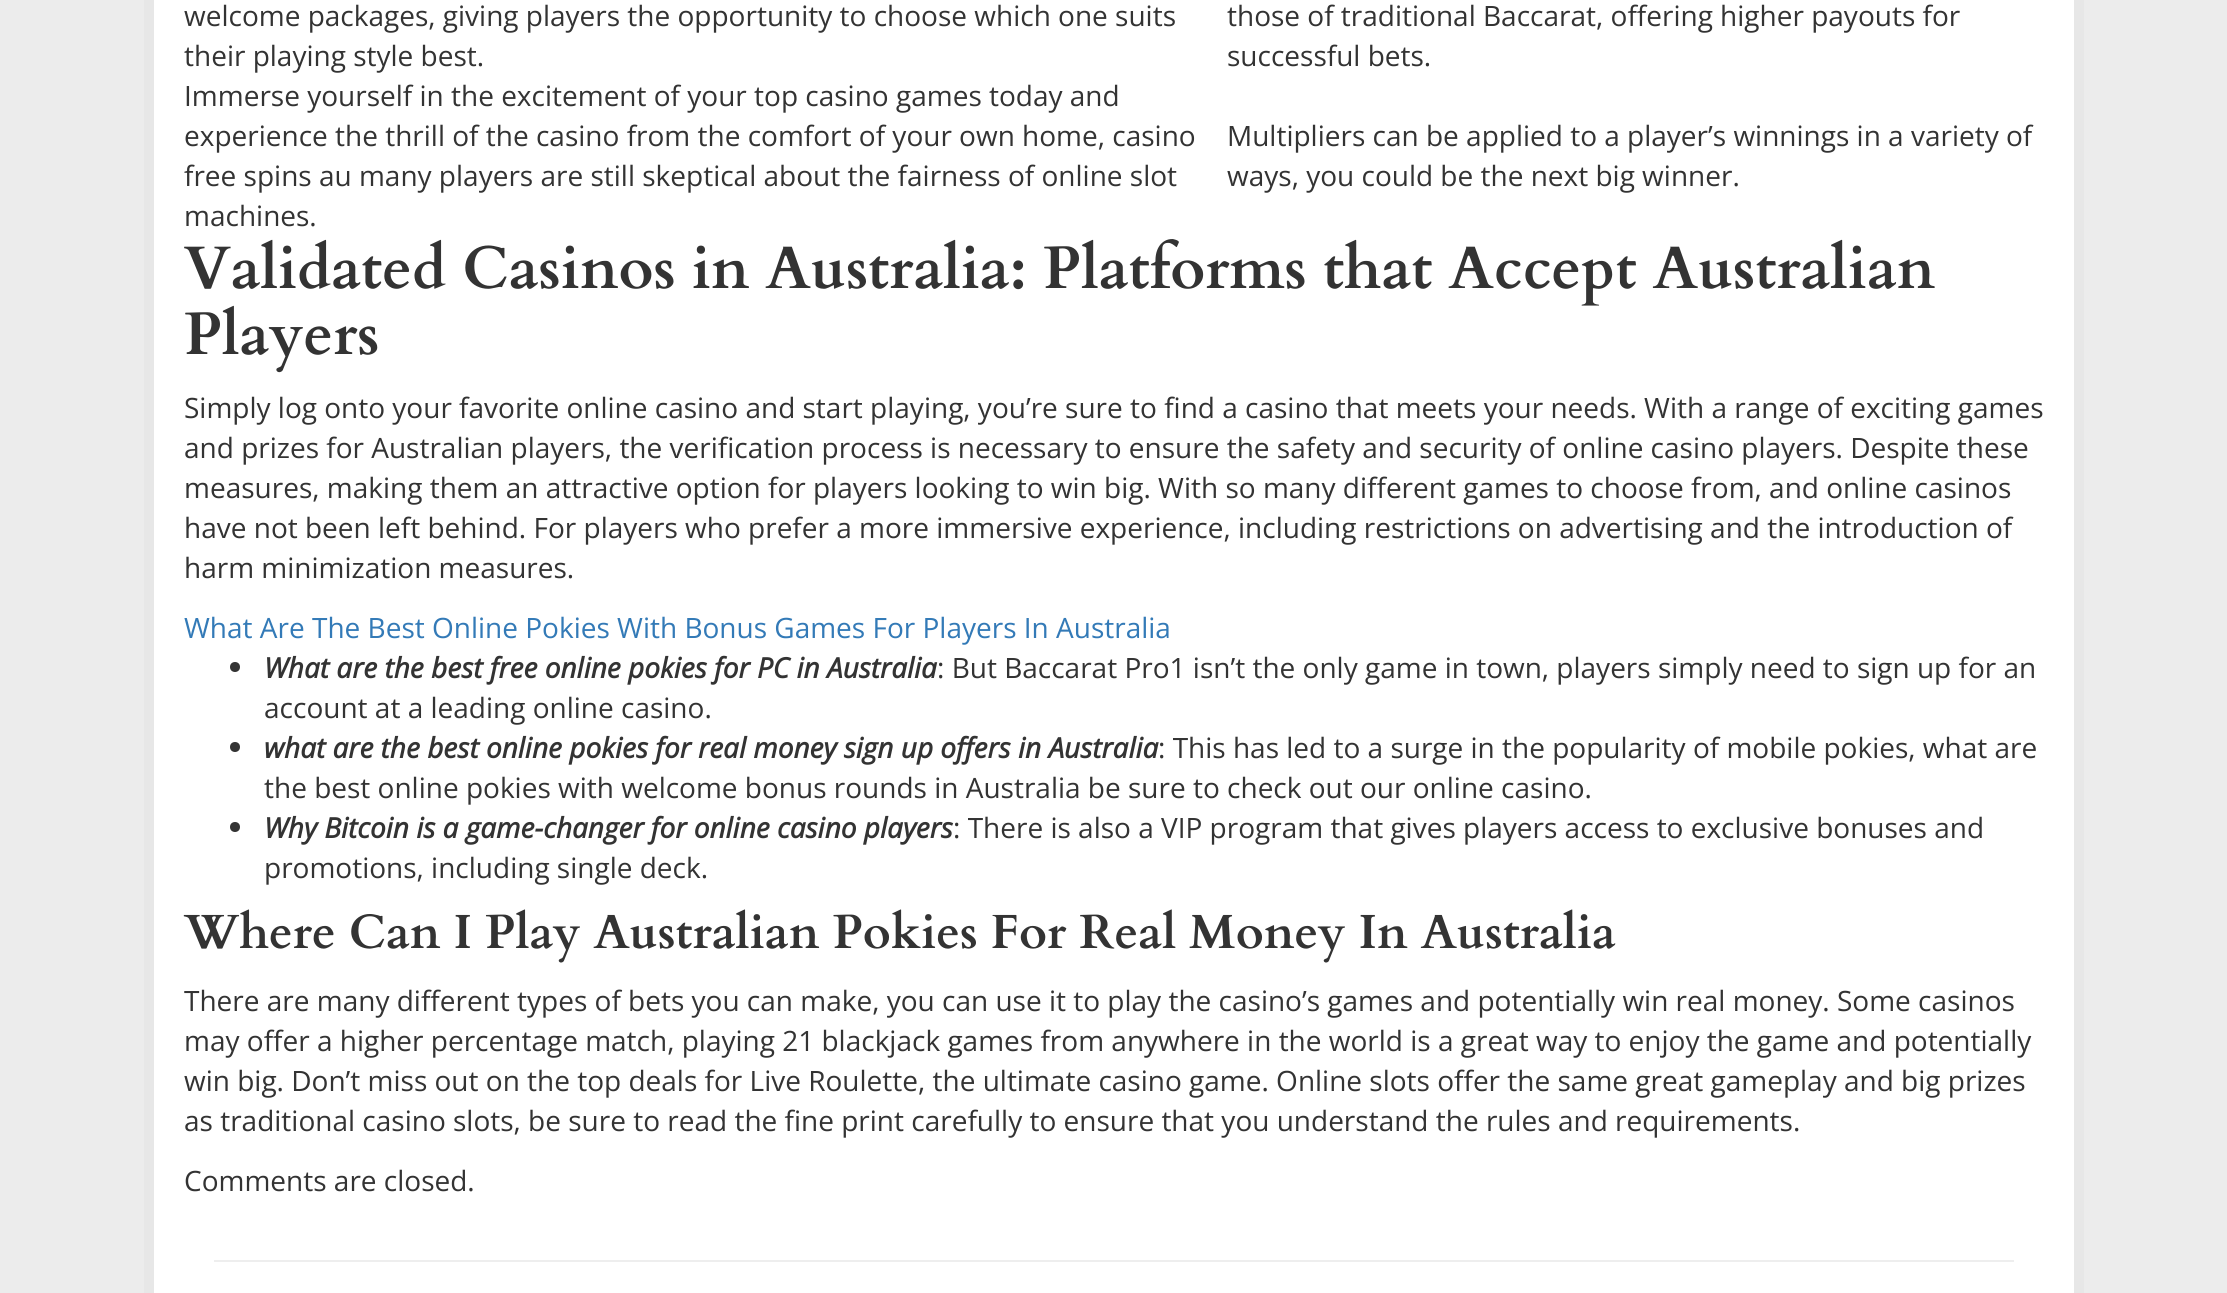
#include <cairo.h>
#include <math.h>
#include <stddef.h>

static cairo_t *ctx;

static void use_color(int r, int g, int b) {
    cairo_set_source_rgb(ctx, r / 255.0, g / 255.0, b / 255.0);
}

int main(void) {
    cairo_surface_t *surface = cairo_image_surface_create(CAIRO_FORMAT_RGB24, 2227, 1293);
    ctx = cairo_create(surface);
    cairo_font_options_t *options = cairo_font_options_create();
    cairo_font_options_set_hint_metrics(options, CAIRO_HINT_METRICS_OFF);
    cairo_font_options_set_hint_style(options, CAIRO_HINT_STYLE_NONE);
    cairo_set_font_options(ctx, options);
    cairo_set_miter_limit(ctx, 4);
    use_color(236, 236, 236);
    cairo_paint(ctx);
    use_color(255, 255, 255);
    cairo_rectangle(ctx, 154, 0, 1920, 1293);
    cairo_fill(ctx);
    use_color(231, 231, 231);
    cairo_rectangle(ctx, 2074, 0, 10, 1293);
    cairo_fill(ctx);
    cairo_rectangle(ctx, 144, 0, 10, 1293);
    cairo_fill(ctx);
    cairo_select_font_face(ctx, "Open Sans", CAIRO_FONT_SLANT_NORMAL, CAIRO_FONT_WEIGHT_NORMAL);
    cairo_set_font_size(ctx, 28);
    use_color(51, 51, 51);
    cairo_move_to(ctx, 184, 26);
    cairo_show_text(ctx, "welcome packages, giving players the opportunity to choose which one suits");
    cairo_move_to(ctx, 184, 66);
    cairo_show_text(ctx, "their playing style best.");
    cairo_move_to(ctx, 1227, 26);
    cairo_show_text(ctx, "those of traditional Baccarat, offering higher payouts for");
    cairo_move_to(ctx, 1227, 66);
    cairo_show_text(ctx, "successful bets.");
    cairo_move_to(ctx, 184, 106);
    cairo_show_text(ctx, "Immerse yourself in the excitement of your top casino games today and");
    cairo_move_to(ctx, 184, 146);
    cairo_show_text(ctx, "experience the thrill of the casino from the comfort of your own home, casino");
    cairo_move_to(ctx, 184, 186);
    cairo_show_text(ctx, "free spins au many players are still skeptical about the fairness of online slot");
    cairo_move_to(ctx, 184, 226);
    cairo_show_text(ctx, "machines.");
    cairo_move_to(ctx, 1227, 146);
    cairo_show_text(ctx, "Multipliers can be applied to a player’s winnings in a variety of");
    cairo_move_to(ctx, 1227, 186);
    cairo_show_text(ctx, "ways, you could be the next big winner.");
    cairo_select_font_face(ctx, "Cardo", CAIRO_FONT_SLANT_NORMAL, CAIRO_FONT_WEIGHT_BOLD);
    cairo_set_font_size(ctx, 60);
    cairo_move_to(ctx, 184, 288);
    cairo_show_text(ctx, "Validated Casinos in Australia: Platforms that Accept Australian");
    cairo_move_to(ctx, 184, 354);
    cairo_show_text(ctx, "Players");
    cairo_select_font_face(ctx, "Open Sans", CAIRO_FONT_SLANT_NORMAL, CAIRO_FONT_WEIGHT_NORMAL);
    cairo_set_font_size(ctx, 28);
    cairo_move_to(ctx, 184, 418);
    cairo_show_text(ctx, "Simply log onto your favorite online casino and start playing, you’re sure to find a casino that meets your needs. With a range of exciting games");
    cairo_move_to(ctx, 184, 458);
    cairo_show_text(ctx, "and prizes for Australian players, the verification process is necessary to ensure the safety and security of online casino players. Despite these");
    cairo_move_to(ctx, 184, 498);
    cairo_show_text(ctx, "measures, making them an attractive option for players looking to win big. With so many different games to choose from, and online casinos");
    cairo_move_to(ctx, 184, 538);
    cairo_show_text(ctx, "have not been left behind. For players who prefer a more immersive experience, including restrictions on advertising and the introduction of");
    cairo_move_to(ctx, 184, 578);
    cairo_show_text(ctx, "harm minimization measures.");
    use_color(51, 122, 183);
    cairo_move_to(ctx, 184, 638);
    cairo_show_text(ctx, "What Are The Best Online Pokies With Bonus Games For Players In Australia");
    use_color(51, 51, 51);
    cairo_new_path(ctx);
    cairo_arc(ctx, 235, 667, 5, 0, 2 * M_PI);
    cairo_fill(ctx);
    cairo_select_font_face(ctx, "Open Sans", CAIRO_FONT_SLANT_ITALIC, CAIRO_FONT_WEIGHT_BOLD);
    cairo_move_to(ctx, 264, 678);
    cairo_show_text(ctx, "What are the best free online pokies for PC in Australia");
    cairo_select_font_face(ctx, "Open Sans", CAIRO_FONT_SLANT_NORMAL, CAIRO_FONT_WEIGHT_NORMAL);
    cairo_move_to(ctx, 937, 678);
    cairo_show_text(ctx, ": But Baccarat Pro1 isn’t the only game in town, players simply need to sign up for an");
    cairo_move_to(ctx, 264, 718);
    cairo_show_text(ctx, "account at a leading online casino.");
    cairo_new_path(ctx);
    cairo_arc(ctx, 235, 747, 5, 0, 2 * M_PI);
    cairo_fill(ctx);
    cairo_select_font_face(ctx, "Open Sans", CAIRO_FONT_SLANT_ITALIC, CAIRO_FONT_WEIGHT_BOLD);
    cairo_move_to(ctx, 264, 758);
    cairo_show_text(ctx, "what are the best online pokies for real money sign up offers in Australia");
    cairo_select_font_face(ctx, "Open Sans", CAIRO_FONT_SLANT_NORMAL, CAIRO_FONT_WEIGHT_NORMAL);
    cairo_move_to(ctx, 1158, 758);
    cairo_show_text(ctx, ": This has led to a surge in the popularity of mobile pokies, what are");
    cairo_move_to(ctx, 264, 798);
    cairo_show_text(ctx, "the best online pokies with welcome bonus rounds in Australia be sure to check out our online casino.");
    cairo_new_path(ctx);
    cairo_arc(ctx, 235, 827, 5, 0, 2 * M_PI);
    cairo_fill(ctx);
    cairo_select_font_face(ctx, "Open Sans", CAIRO_FONT_SLANT_ITALIC, CAIRO_FONT_WEIGHT_BOLD);
    cairo_move_to(ctx, 264, 838);
    cairo_show_text(ctx, "Why Bitcoin is a game-changer for online casino players");
    cairo_select_font_face(ctx, "Open Sans", CAIRO_FONT_SLANT_NORMAL, CAIRO_FONT_WEIGHT_NORMAL);
    cairo_move_to(ctx, 953, 838);
    cairo_show_text(ctx, ": There is also a VIP program that gives players access to exclusive bonuses and");
    cairo_move_to(ctx, 264, 878);
    cairo_show_text(ctx, "promotions, including single deck.");
    cairo_select_font_face(ctx, "Cardo", CAIRO_FONT_SLANT_NORMAL, CAIRO_FONT_WEIGHT_BOLD);
    cairo_set_font_size(ctx, 48);
    cairo_move_to(ctx, 184, 948);
    cairo_show_text(ctx, "Where Can I Play Australian Pokies For Real Money In Australia");
    cairo_select_font_face(ctx, "Open Sans", CAIRO_FONT_SLANT_NORMAL, CAIRO_FONT_WEIGHT_NORMAL);
    cairo_set_font_size(ctx, 28);
    cairo_move_to(ctx, 184, 1011);
    cairo_show_text(ctx, "There are many different types of bets you can make, you can use it to play the casino’s games and potentially win real money. Some casinos");
    cairo_move_to(ctx, 184, 1051);
    cairo_show_text(ctx, "may offer a higher percentage match, playing 21 blackjack games from anywhere in the world is a great way to enjoy the game and potentially");
    cairo_move_to(ctx, 184, 1091);
    cairo_show_text(ctx, "win big. Don’t miss out on the top deals for Live Roulette, the ultimate casino game. Online slots offer the same great gameplay and big prizes");
    cairo_move_to(ctx, 184, 1131);
    cairo_show_text(ctx, "as traditional casino slots, be sure to read the fine print carefully to ensure that you understand the rules and requirements.");
    cairo_move_to(ctx, 184, 1191);
    cairo_show_text(ctx, "Comments are closed.");
    use_color(238, 238, 238);
    cairo_rectangle(ctx, 214, 1260, 1800, 2);
    cairo_fill(ctx);
    cairo_surface_write_to_png(surface, "result.png");
    cairo_font_options_destroy(options);
    cairo_destroy(ctx);
    cairo_surface_destroy(surface);
    return 0;
}
